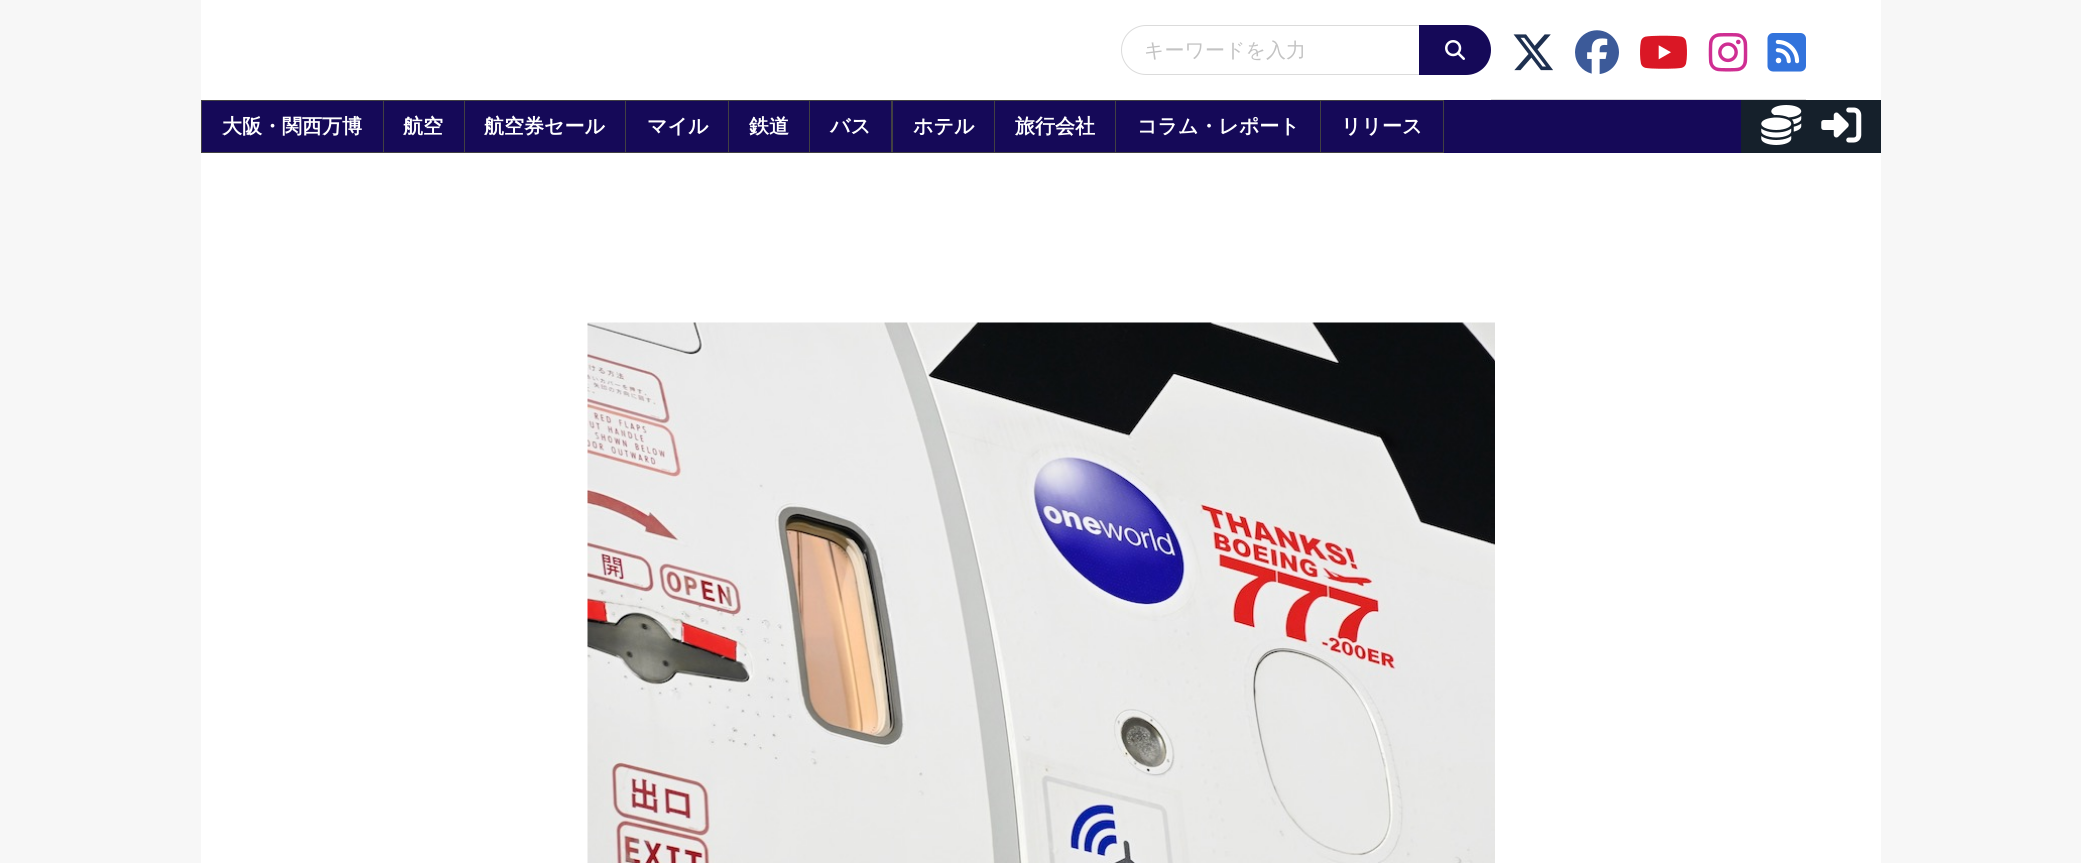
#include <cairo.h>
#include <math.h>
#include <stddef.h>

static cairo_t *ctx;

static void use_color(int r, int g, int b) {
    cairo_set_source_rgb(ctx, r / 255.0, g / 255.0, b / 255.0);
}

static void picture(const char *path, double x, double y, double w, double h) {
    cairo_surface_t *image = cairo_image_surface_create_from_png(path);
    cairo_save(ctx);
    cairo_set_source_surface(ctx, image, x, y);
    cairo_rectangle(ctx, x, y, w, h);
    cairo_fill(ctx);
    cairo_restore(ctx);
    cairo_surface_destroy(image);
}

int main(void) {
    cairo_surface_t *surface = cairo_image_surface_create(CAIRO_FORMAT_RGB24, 2081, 863);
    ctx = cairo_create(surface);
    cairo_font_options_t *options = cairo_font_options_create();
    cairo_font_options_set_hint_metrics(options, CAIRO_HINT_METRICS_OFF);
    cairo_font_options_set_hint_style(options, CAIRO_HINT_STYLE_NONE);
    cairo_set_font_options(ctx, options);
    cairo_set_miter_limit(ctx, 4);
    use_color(247, 247, 247);
    cairo_paint(ctx);
    use_color(255, 255, 255);
    cairo_rectangle(ctx, 201, 0, 1680, 863);
    cairo_fill(ctx);
    cairo_new_path(ctx);
    cairo_move_to(ctx, 1146, 25.5);
    cairo_line_to(ctx, 1419.5, 25.5);
    cairo_line_to(ctx, 1419.5, 74.5);
    cairo_line_to(ctx, 1146, 74.5);
    cairo_curve_to(ctx, 1132.5, 74.5, 1121.5, 63.5, 1121.5, 50);
    cairo_curve_to(ctx, 1121.5, 36.5, 1132.5, 25.5, 1146, 25.5);
    cairo_close_path(ctx);
    use_color(219, 219, 219);
    cairo_set_line_width(ctx, 1);
    cairo_stroke(ctx);
    cairo_select_font_face(ctx, "WenQuanYi Zen Hei Medium", CAIRO_FONT_SLANT_NORMAL, CAIRO_FONT_WEIGHT_NORMAL);
    cairo_set_font_size(ctx, 20);
    use_color(195, 195, 195);
    cairo_move_to(ctx, 1144, 57);
    cairo_show_text(ctx, "キーワードを入力");
    use_color(21, 9, 88);
    cairo_new_path(ctx);
    cairo_move_to(ctx, 1419, 25);
    cairo_line_to(ctx, 1466, 25);
    cairo_curve_to(ctx, 1480, 25, 1491, 36, 1491, 50);
    cairo_curve_to(ctx, 1491, 64, 1480, 75, 1466, 75);
    cairo_line_to(ctx, 1419, 75);
    cairo_close_path(ctx);
    cairo_fill(ctx);
    picture("img1.png", 1445, 40, 20, 20);
    use_color(219, 219, 219);
    cairo_rectangle(ctx, 1491, 99, 315, 1);
    cairo_fill(ctx);
    picture("img2.png", 1513, 34, 40, 37);
    picture("img3.png", 1575, 30, 44, 44);
    picture("img4.png", 1640, 35, 47, 34);
    picture("img5.png", 1708, 33, 40, 39);
    picture("img6.png", 1767, 33, 39, 39);
    use_color(21, 9, 88);
    cairo_rectangle(ctx, 202, 100, 1539, 53);
    cairo_fill(ctx);
    cairo_rectangle(ctx, 201.5, 100.5, 182, 52);
    use_color(65, 64, 66);
    cairo_stroke(ctx);
    cairo_select_font_face(ctx, "WenQuanYi Zen Hei", CAIRO_FONT_SLANT_NORMAL, CAIRO_FONT_WEIGHT_BOLD);
    use_color(255, 255, 255);
    cairo_move_to(ctx, 222, 133);
    cairo_show_text(ctx, "大阪・関西万博");
    cairo_rectangle(ctx, 383.5, 100.5, 81, 52);
    use_color(65, 64, 66);
    cairo_stroke(ctx);
    use_color(255, 255, 255);
    cairo_move_to(ctx, 403, 133);
    cairo_show_text(ctx, "航空");
    cairo_rectangle(ctx, 464.5, 100.5, 161, 52);
    use_color(65, 64, 66);
    cairo_stroke(ctx);
    use_color(255, 255, 255);
    cairo_move_to(ctx, 484, 133);
    cairo_show_text(ctx, "航空券セール");
    cairo_rectangle(ctx, 625.5, 100.5, 103, 52);
    use_color(65, 64, 66);
    cairo_stroke(ctx);
    use_color(255, 255, 255);
    cairo_move_to(ctx, 647, 133);
    cairo_show_text(ctx, "マイル");
    cairo_rectangle(ctx, 728.5, 100.5, 81, 52);
    use_color(65, 64, 66);
    cairo_stroke(ctx);
    use_color(255, 255, 255);
    cairo_move_to(ctx, 749, 133);
    cairo_show_text(ctx, "鉄道");
    cairo_rectangle(ctx, 809.5, 100.5, 83, 52);
    use_color(65, 64, 66);
    cairo_stroke(ctx);
    use_color(255, 255, 255);
    cairo_move_to(ctx, 830, 133);
    cairo_show_text(ctx, "バス");
    cairo_rectangle(ctx, 891.5, 100.5, 103, 52);
    use_color(65, 64, 66);
    cairo_stroke(ctx);
    use_color(255, 255, 255);
    cairo_move_to(ctx, 913, 133);
    cairo_show_text(ctx, "ホテル");
    cairo_rectangle(ctx, 994.5, 100.5, 121, 52);
    use_color(65, 64, 66);
    cairo_stroke(ctx);
    use_color(255, 255, 255);
    cairo_move_to(ctx, 1015, 133);
    cairo_show_text(ctx, "旅行会社");
    cairo_rectangle(ctx, 1115.5, 100.5, 205, 52);
    use_color(65, 64, 66);
    cairo_stroke(ctx);
    use_color(255, 255, 255);
    cairo_move_to(ctx, 1137, 133);
    cairo_show_text(ctx, "コラム・レポート");
    cairo_rectangle(ctx, 1320.5, 100.5, 123, 52);
    use_color(65, 64, 66);
    cairo_stroke(ctx);
    use_color(255, 255, 255);
    cairo_move_to(ctx, 1341, 133);
    cairo_show_text(ctx, "リリース");
    use_color(21, 32, 43);
    cairo_rectangle(ctx, 1741, 100, 140, 53);
    cairo_fill(ctx);
    picture("img7.png", 1761, 105, 41, 40);
    picture("img8.png", 1821, 107, 41, 36);
    picture("img9.png", 587, 322, 908, 541);
    cairo_surface_write_to_png(surface, "result.png");
    cairo_font_options_destroy(options);
    cairo_destroy(ctx);
    cairo_surface_destroy(surface);
    return 0;
}
